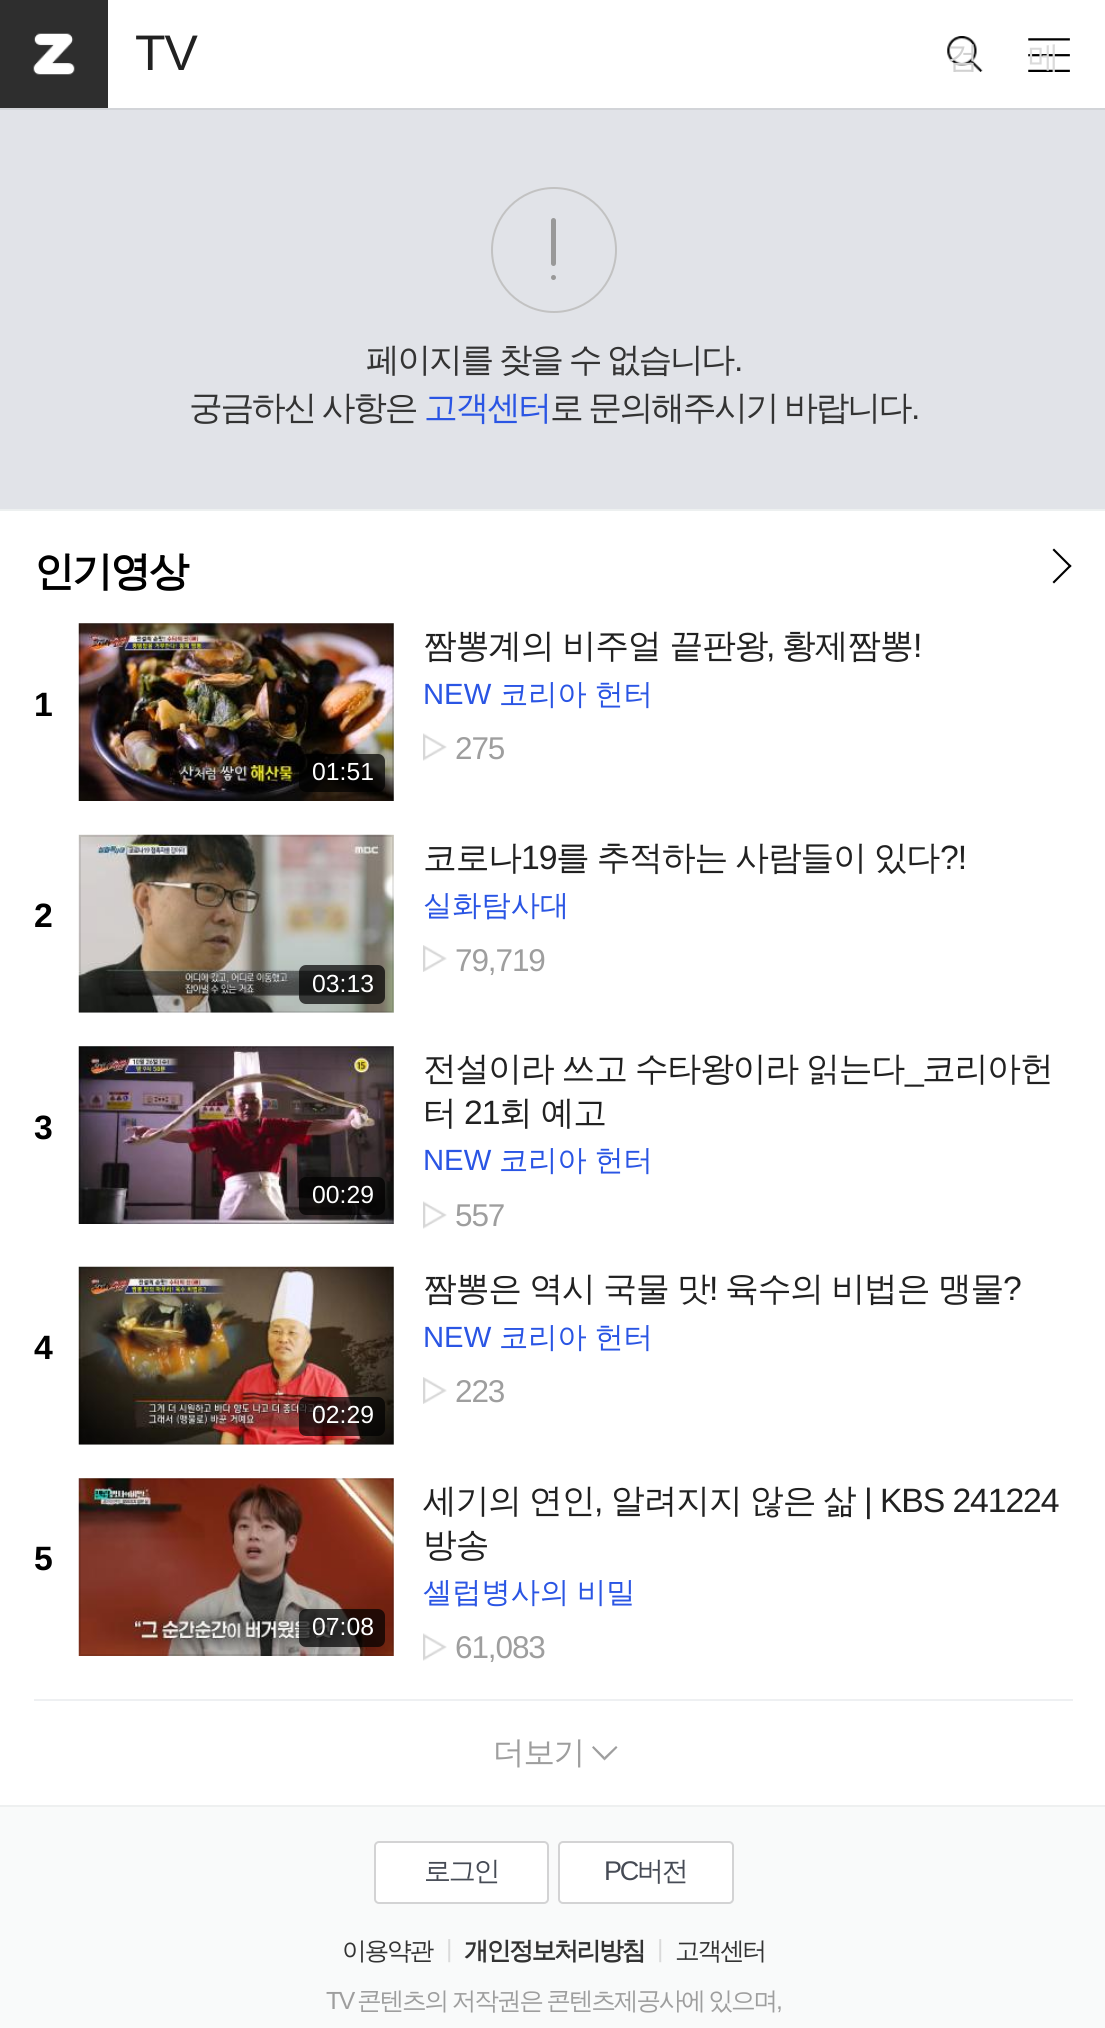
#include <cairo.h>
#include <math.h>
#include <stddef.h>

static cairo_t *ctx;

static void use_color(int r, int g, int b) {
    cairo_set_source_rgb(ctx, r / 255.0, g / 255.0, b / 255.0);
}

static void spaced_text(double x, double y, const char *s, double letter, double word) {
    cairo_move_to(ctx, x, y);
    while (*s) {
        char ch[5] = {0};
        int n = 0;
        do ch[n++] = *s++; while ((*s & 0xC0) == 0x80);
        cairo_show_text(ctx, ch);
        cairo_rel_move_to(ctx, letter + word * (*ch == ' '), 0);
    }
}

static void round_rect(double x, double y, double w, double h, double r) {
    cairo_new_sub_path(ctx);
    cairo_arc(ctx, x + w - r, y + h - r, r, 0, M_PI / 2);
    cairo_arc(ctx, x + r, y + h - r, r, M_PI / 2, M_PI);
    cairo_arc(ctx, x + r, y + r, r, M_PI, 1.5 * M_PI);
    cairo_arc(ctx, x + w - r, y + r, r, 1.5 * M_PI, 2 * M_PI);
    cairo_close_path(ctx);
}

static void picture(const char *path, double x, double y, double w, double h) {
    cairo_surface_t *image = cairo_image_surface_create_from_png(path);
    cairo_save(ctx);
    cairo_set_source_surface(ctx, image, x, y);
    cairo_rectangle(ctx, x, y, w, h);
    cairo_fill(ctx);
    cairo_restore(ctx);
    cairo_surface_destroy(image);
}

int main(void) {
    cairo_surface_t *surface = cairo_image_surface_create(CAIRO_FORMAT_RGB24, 1105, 2028);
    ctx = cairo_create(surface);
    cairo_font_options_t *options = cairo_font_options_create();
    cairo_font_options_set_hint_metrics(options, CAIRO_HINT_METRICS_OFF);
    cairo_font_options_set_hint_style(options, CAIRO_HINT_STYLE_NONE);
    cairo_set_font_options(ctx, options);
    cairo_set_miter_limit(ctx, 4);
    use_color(225, 227, 232);
    cairo_paint(ctx);
    use_color(255, 255, 255);
    cairo_rectangle(ctx, 108, 0, 997, 108);
    cairo_fill(ctx);
    use_color(46, 46, 46);
    cairo_rectangle(ctx, 0, 0, 108, 108);
    cairo_fill(ctx);
    picture("img1.png", 33, 33, 42, 42);
    cairo_select_font_face(ctx, "Liberation Sans", CAIRO_FONT_SLANT_NORMAL, CAIRO_FONT_WEIGHT_NORMAL);
    cairo_set_font_size(ctx, 50);
    use_color(33, 33, 33);
    spaced_text(135, 70, "TV", -1, 0);
    picture("img2.png", 947, 36, 36, 36);
    cairo_save(ctx);
    cairo_rectangle(ctx, 947, 36, 36, 36);
    cairo_clip(ctx);
    cairo_select_font_face(ctx, "WenQuanYi Zen Hei Medium", CAIRO_FONT_SLANT_NORMAL, CAIRO_FONT_WEIGHT_NORMAL);
    cairo_set_font_size(ctx, 31.5);
    use_color(209, 209, 209);
    cairo_move_to(ctx, 947, 68);
    cairo_show_text(ctx, "검");
    cairo_restore(ctx);
    picture("img3.png", 1028, 38, 42, 34);
    cairo_save(ctx);
    cairo_rectangle(ctx, 1028, 38, 43, 34);
    cairo_clip(ctx);
    cairo_select_font_face(ctx, "WenQuanYi Zen Hei Medium", CAIRO_FONT_SLANT_NORMAL, CAIRO_FONT_WEIGHT_NORMAL);
    cairo_set_font_size(ctx, 31.5);
    use_color(218, 218, 218);
    spaced_text(1028, 68, "메", 0, -1);
    cairo_restore(ctx);
    use_color(210, 212, 216);
    cairo_rectangle(ctx, 0, 108, 1105, 2);
    cairo_fill(ctx);
    cairo_arc(ctx, 554, 250, 62, 0, 2 * M_PI);
    use_color(194, 194, 194);
    cairo_stroke(ctx);
    use_color(153, 153, 153);
    round_rect(551, 218, 5, 48, 2.5);
    cairo_fill(ctx);
    cairo_arc(ctx, 553.5, 277.5, 2.5, 0, 2 * M_PI);
    cairo_fill(ctx);
    cairo_select_font_face(ctx, "WenQuanYi Zen Hei Medium", CAIRO_FONT_SLANT_NORMAL, CAIRO_FONT_WEIGHT_NORMAL);
    cairo_set_font_size(ctx, 33.75);
    use_color(51, 51, 51);
    spaced_text(366, 371, "페이지를 찾을 수 없습니다", -2.25, -1);
    cairo_select_font_face(ctx, "Liberation Sans", CAIRO_FONT_SLANT_NORMAL, CAIRO_FONT_WEIGHT_NORMAL);
    spaced_text(734, 371, ".", -2.25, 0);
    cairo_select_font_face(ctx, "WenQuanYi Zen Hei Medium", CAIRO_FONT_SLANT_NORMAL, CAIRO_FONT_WEIGHT_NORMAL);
    spaced_text(189, 419, "궁금하신 사항은", -2.25, -1);
    use_color(42, 85, 228);
    spaced_text(424, 419, "고객센터", -2.25, 0);
    use_color(51, 51, 51);
    spaced_text(550, 419, "로 문의해주시기 바랍니다", -2.25, -1);
    cairo_select_font_face(ctx, "Liberation Sans", CAIRO_FONT_SLANT_NORMAL, CAIRO_FONT_WEIGHT_NORMAL);
    spaced_text(911, 419, ".", -2.25, 0);
    use_color(255, 255, 255);
    cairo_rectangle(ctx, 0, 511, 1105, 1294);
    cairo_fill(ctx);
    use_color(237, 240, 240);
    cairo_rectangle(ctx, 0, 509, 1105, 2);
    cairo_fill(ctx);
    cairo_select_font_face(ctx, "WenQuanYi Zen Hei", CAIRO_FONT_SLANT_NORMAL, CAIRO_FONT_WEIGHT_BOLD);
    cairo_set_font_size(ctx, 40.5);
    use_color(0, 0, 0);
    spaced_text(34, 585, "인기영상", -2.25, 0);
    cairo_new_path(ctx);
    cairo_move_to(ctx, 1052.5, 550);
    cairo_line_to(ctx, 1054, 548.5);
    cairo_line_to(ctx, 1071.5, 566);
    cairo_line_to(ctx, 1070, 567.5);
    cairo_close_path(ctx);
    cairo_fill(ctx);
    cairo_new_path(ctx);
    cairo_move_to(ctx, 1052.5, 582);
    cairo_line_to(ctx, 1070, 564.5);
    cairo_line_to(ctx, 1071.5, 566);
    cairo_line_to(ctx, 1054, 583.5);
    cairo_close_path(ctx);
    cairo_fill(ctx);
    cairo_select_font_face(ctx, "Liberation Sans", CAIRO_FONT_SLANT_NORMAL, CAIRO_FONT_WEIGHT_BOLD);
    cairo_set_font_size(ctx, 33.75);
    spaced_text(34, 716, "1", -2.25, 0);
    cairo_select_font_face(ctx, "WenQuanYi Zen Hei Medium", CAIRO_FONT_SLANT_NORMAL, CAIRO_FONT_WEIGHT_NORMAL);
    use_color(33, 33, 33);
    spaced_text(423, 657, "짬뽕계의 비주얼 끝판왕", -1.1, 0);
    cairo_select_font_face(ctx, "Liberation Sans", CAIRO_FONT_SLANT_NORMAL, CAIRO_FONT_WEIGHT_NORMAL);
    spaced_text(766, 657, ",", -1.1, 0);
    cairo_select_font_face(ctx, "WenQuanYi Zen Hei Medium", CAIRO_FONT_SLANT_NORMAL, CAIRO_FONT_WEIGHT_NORMAL);
    spaced_text(782, 657, "황제짬뽕", -1.1, 0);
    cairo_select_font_face(ctx, "Liberation Sans", CAIRO_FONT_SLANT_NORMAL, CAIRO_FONT_WEIGHT_NORMAL);
    spaced_text(913, 657, "!", -1.1, 0);
    cairo_set_font_size(ctx, 29.25);
    use_color(42, 85, 228);
    cairo_move_to(ctx, 423, 704);
    cairo_show_text(ctx, "NEW");
    cairo_select_font_face(ctx, "WenQuanYi Zen Hei Medium", CAIRO_FONT_SLANT_NORMAL, CAIRO_FONT_WEIGHT_NORMAL);
    spaced_text(499, 704, "코리아 헌터", 0, -1);
    picture("img4.png", 423, 733, 24, 28);
    cairo_select_font_face(ctx, "Liberation Sans", CAIRO_FONT_SLANT_NORMAL, CAIRO_FONT_WEIGHT_NORMAL);
    cairo_set_font_size(ctx, 31.5);
    use_color(158, 158, 158);
    spaced_text(455, 759, "275", -1.1, 0);
    picture("img5.png", 78, 623, 316, 178);
    cairo_rectangle(ctx, 80, 624, 313, 176);
    cairo_set_source_rgba(ctx, 0, 0, 0, 0.1);
    cairo_stroke(ctx);
    cairo_set_source_rgba(ctx, 0, 0, 0, 0.7);
    round_rect(299, 754, 86, 38, 7);
    cairo_fill(ctx);
    cairo_set_font_size(ctx, 24.75);
    use_color(255, 255, 255);
    cairo_move_to(ctx, 312, 780);
    cairo_show_text(ctx, "01:51");
    cairo_select_font_face(ctx, "Liberation Sans", CAIRO_FONT_SLANT_NORMAL, CAIRO_FONT_WEIGHT_BOLD);
    cairo_set_font_size(ctx, 33.75);
    use_color(0, 0, 0);
    spaced_text(34, 927, "2", -2.25, 0);
    cairo_select_font_face(ctx, "WenQuanYi Zen Hei Medium", CAIRO_FONT_SLANT_NORMAL, CAIRO_FONT_WEIGHT_NORMAL);
    use_color(33, 33, 33);
    spaced_text(423, 869, "코로나", -1.1, 0);
    cairo_select_font_face(ctx, "Liberation Sans", CAIRO_FONT_SLANT_NORMAL, CAIRO_FONT_WEIGHT_NORMAL);
    spaced_text(521, 869, "19", -1.1, 0);
    cairo_select_font_face(ctx, "WenQuanYi Zen Hei Medium", CAIRO_FONT_SLANT_NORMAL, CAIRO_FONT_WEIGHT_NORMAL);
    spaced_text(556, 869, "를 추적하는 사람들이 있다", -1.1, -1);
    cairo_select_font_face(ctx, "Liberation Sans", CAIRO_FONT_SLANT_NORMAL, CAIRO_FONT_WEIGHT_NORMAL);
    spaced_text(940, 869, "?!", -1.1, 0);
    cairo_select_font_face(ctx, "WenQuanYi Zen Hei Medium", CAIRO_FONT_SLANT_NORMAL, CAIRO_FONT_WEIGHT_NORMAL);
    cairo_set_font_size(ctx, 29.25);
    use_color(42, 85, 228);
    cairo_move_to(ctx, 423, 915);
    cairo_show_text(ctx, "실화탐사대");
    picture("img6.png", 423, 945, 24, 27);
    cairo_select_font_face(ctx, "Liberation Sans", CAIRO_FONT_SLANT_NORMAL, CAIRO_FONT_WEIGHT_NORMAL);
    cairo_set_font_size(ctx, 31.5);
    use_color(158, 158, 158);
    spaced_text(455, 971, "79,719", -1.1, 0);
    picture("img7.png", 78, 834, 316, 179);
    cairo_rectangle(ctx, 80, 836, 313, 176);
    cairo_set_source_rgba(ctx, 0, 0, 0, 0.1);
    cairo_stroke(ctx);
    cairo_set_source_rgba(ctx, 0, 0, 0, 0.7);
    round_rect(299, 965, 86, 39, 7);
    cairo_fill(ctx);
    cairo_set_font_size(ctx, 24.75);
    use_color(255, 255, 255);
    cairo_move_to(ctx, 312, 992);
    cairo_show_text(ctx, "03:13");
    cairo_select_font_face(ctx, "Liberation Sans", CAIRO_FONT_SLANT_NORMAL, CAIRO_FONT_WEIGHT_BOLD);
    cairo_set_font_size(ctx, 33.75);
    use_color(0, 0, 0);
    spaced_text(34, 1139, "3", -2.25, 0);
    cairo_select_font_face(ctx, "WenQuanYi Zen Hei Medium", CAIRO_FONT_SLANT_NORMAL, CAIRO_FONT_WEIGHT_NORMAL);
    use_color(33, 33, 33);
    spaced_text(423, 1080, "전설이라 쓰고 수타왕이라 읽는다", -1.1, -1);
    spaced_text(922, 1080, "코리아헌", -1.1, 0);
    cairo_select_font_face(ctx, "Liberation Sans", CAIRO_FONT_SLANT_NORMAL, CAIRO_FONT_WEIGHT_NORMAL);
    spaced_text(905, 1080, "_", -1.1, 0);
    cairo_select_font_face(ctx, "WenQuanYi Zen Hei Medium", CAIRO_FONT_SLANT_NORMAL, CAIRO_FONT_WEIGHT_NORMAL);
    spaced_text(423, 1124, "터", -1.1, 0);
    cairo_select_font_face(ctx, "Liberation Sans", CAIRO_FONT_SLANT_NORMAL, CAIRO_FONT_WEIGHT_NORMAL);
    spaced_text(464, 1124, "21", -1.1, 0);
    cairo_select_font_face(ctx, "WenQuanYi Zen Hei Medium", CAIRO_FONT_SLANT_NORMAL, CAIRO_FONT_WEIGHT_NORMAL);
    spaced_text(499, 1124, "회 예고", -1.1, 0);
    cairo_select_font_face(ctx, "Liberation Sans", CAIRO_FONT_SLANT_NORMAL, CAIRO_FONT_WEIGHT_NORMAL);
    cairo_set_font_size(ctx, 29.25);
    use_color(42, 85, 228);
    cairo_move_to(ctx, 423, 1170);
    cairo_show_text(ctx, "NEW");
    cairo_select_font_face(ctx, "WenQuanYi Zen Hei Medium", CAIRO_FONT_SLANT_NORMAL, CAIRO_FONT_WEIGHT_NORMAL);
    spaced_text(499, 1170, "코리아 헌터", 0, -1);
    picture("img4.png", 423, 1201, 24, 28);
    cairo_select_font_face(ctx, "Liberation Sans", CAIRO_FONT_SLANT_NORMAL, CAIRO_FONT_WEIGHT_NORMAL);
    cairo_set_font_size(ctx, 31.5);
    use_color(158, 158, 158);
    spaced_text(455, 1226, "557", -1.1, 0);
    picture("img8.png", 78, 1046, 316, 178);
    cairo_rectangle(ctx, 80, 1047, 313, 176);
    cairo_set_source_rgba(ctx, 0, 0, 0, 0.1);
    cairo_stroke(ctx);
    cairo_set_source_rgba(ctx, 0, 0, 0, 0.7);
    round_rect(299, 1177, 86, 38, 7);
    cairo_fill(ctx);
    cairo_set_font_size(ctx, 24.75);
    use_color(255, 255, 255);
    cairo_move_to(ctx, 312, 1203);
    cairo_show_text(ctx, "00:29");
    cairo_select_font_face(ctx, "Liberation Sans", CAIRO_FONT_SLANT_NORMAL, CAIRO_FONT_WEIGHT_BOLD);
    cairo_set_font_size(ctx, 33.75);
    use_color(0, 0, 0);
    spaced_text(34, 1359, "4", -2.25, 0);
    cairo_select_font_face(ctx, "WenQuanYi Zen Hei Medium", CAIRO_FONT_SLANT_NORMAL, CAIRO_FONT_WEIGHT_NORMAL);
    use_color(33, 33, 33);
    spaced_text(423, 1300, "짬뽕은 역시 국물 맛", -1.1, -0.5);
    cairo_select_font_face(ctx, "Liberation Sans", CAIRO_FONT_SLANT_NORMAL, CAIRO_FONT_WEIGHT_NORMAL);
    spaced_text(709, 1300, "!", -1.1, 0);
    cairo_select_font_face(ctx, "WenQuanYi Zen Hei Medium", CAIRO_FONT_SLANT_NORMAL, CAIRO_FONT_WEIGHT_NORMAL);
    spaced_text(725, 1300, "육수의 비법은 맹물", -1.1, -0.5);
    cairo_select_font_face(ctx, "Liberation Sans", CAIRO_FONT_SLANT_NORMAL, CAIRO_FONT_WEIGHT_NORMAL);
    spaced_text(1003, 1300, "?", -1.1, 0);
    cairo_set_font_size(ctx, 29.25);
    use_color(42, 85, 228);
    cairo_move_to(ctx, 423, 1347);
    cairo_show_text(ctx, "NEW");
    cairo_select_font_face(ctx, "WenQuanYi Zen Hei Medium", CAIRO_FONT_SLANT_NORMAL, CAIRO_FONT_WEIGHT_NORMAL);
    spaced_text(499, 1347, "코리아 헌터", 0, -1);
    picture("img6.png", 423, 1377, 24, 27);
    cairo_select_font_face(ctx, "Liberation Sans", CAIRO_FONT_SLANT_NORMAL, CAIRO_FONT_WEIGHT_NORMAL);
    cairo_set_font_size(ctx, 31.5);
    use_color(158, 158, 158);
    spaced_text(455, 1402, "223", -1.1, 0);
    picture("img9.png", 78, 1266, 316, 179);
    cairo_rectangle(ctx, 80, 1268, 313, 176);
    cairo_set_source_rgba(ctx, 0, 0, 0, 0.1);
    cairo_stroke(ctx);
    cairo_set_source_rgba(ctx, 0, 0, 0, 0.7);
    round_rect(299, 1397, 86, 39, 7);
    cairo_fill(ctx);
    cairo_set_font_size(ctx, 24.75);
    use_color(255, 255, 255);
    cairo_move_to(ctx, 312, 1423);
    cairo_show_text(ctx, "02:29");
    cairo_select_font_face(ctx, "Liberation Sans", CAIRO_FONT_SLANT_NORMAL, CAIRO_FONT_WEIGHT_BOLD);
    cairo_set_font_size(ctx, 33.75);
    use_color(0, 0, 0);
    spaced_text(34, 1570, "5", -2.25, 0);
    cairo_select_font_face(ctx, "WenQuanYi Zen Hei Medium", CAIRO_FONT_SLANT_NORMAL, CAIRO_FONT_WEIGHT_NORMAL);
    use_color(33, 33, 33);
    spaced_text(423, 1512, "세기의", -1.1, 0);
    spaced_text(529, 1512, "연인", -1.1, 0);
    cairo_select_font_face(ctx, "Liberation Sans", CAIRO_FONT_SLANT_NORMAL, CAIRO_FONT_WEIGHT_NORMAL);
    spaced_text(594, 1512, ",", -1.1, 0);
    cairo_select_font_face(ctx, "WenQuanYi Zen Hei Medium", CAIRO_FONT_SLANT_NORMAL, CAIRO_FONT_WEIGHT_NORMAL);
    spaced_text(611, 1512, "알려지지", -1.1, 0);
    spaced_text(750, 1512, "않은", -1.1, 0);
    spaced_text(823, 1512, "삶", -1.1, 0);
    cairo_select_font_face(ctx, "Liberation Sans", CAIRO_FONT_SLANT_NORMAL, CAIRO_FONT_WEIGHT_NORMAL);
    spaced_text(864, 1512, "| KBS 241224", -1.1, 0);
    cairo_select_font_face(ctx, "WenQuanYi Zen Hei Medium", CAIRO_FONT_SLANT_NORMAL, CAIRO_FONT_WEIGHT_NORMAL);
    spaced_text(423, 1556, "방송", -1.1, 0);
    cairo_set_font_size(ctx, 29.25);
    use_color(42, 85, 228);
    spaced_text(423, 1602, "셀럽병사의 비밀", 0, -1);
    picture("img4.png", 423, 1633, 24, 28);
    cairo_select_font_face(ctx, "Liberation Sans", CAIRO_FONT_SLANT_NORMAL, CAIRO_FONT_WEIGHT_NORMAL);
    cairo_set_font_size(ctx, 31.5);
    use_color(158, 158, 158);
    spaced_text(455, 1658, "61,083", -1.1, 0);
    picture("img10.png", 78, 1478, 316, 178);
    cairo_rectangle(ctx, 80, 1479, 313, 176);
    cairo_set_source_rgba(ctx, 0, 0, 0, 0.1);
    cairo_stroke(ctx);
    cairo_set_source_rgba(ctx, 0, 0, 0, 0.7);
    round_rect(299, 1609, 86, 38, 7);
    cairo_fill(ctx);
    cairo_set_font_size(ctx, 24.75);
    use_color(255, 255, 255);
    cairo_move_to(ctx, 312, 1635);
    cairo_show_text(ctx, "07:08");
    use_color(238, 240, 242);
    cairo_rectangle(ctx, 34, 1699, 1039, 2);
    cairo_fill(ctx);
    cairo_select_font_face(ctx, "WenQuanYi Zen Hei Medium", CAIRO_FONT_SLANT_NORMAL, CAIRO_FONT_WEIGHT_NORMAL);
    cairo_set_font_size(ctx, 31.5);
    use_color(158, 158, 158);
    spaced_text(493, 1763, "더보기", -1.1, 0);
    cairo_new_path(ctx);
    cairo_move_to(ctx, 617.5, 1747.5);
    cairo_line_to(ctx, 604.5, 1760.5);
    cairo_line_to(ctx, 604.5, 1757);
    cairo_line_to(ctx, 616, 1746);
    cairo_close_path(ctx);
    cairo_fill(ctx);
    cairo_set_source_rgba(ctx, 0, 0, 0, 0.38);
    cairo_new_path(ctx);
    cairo_move_to(ctx, 604.5, 1760.5);
    cairo_line_to(ctx, 592, 1747.5);
    cairo_line_to(ctx, 593.5, 1746);
    cairo_line_to(ctx, 604.5, 1757);
    cairo_close_path(ctx);
    cairo_fill(ctx);
    use_color(249, 250, 250);
    cairo_rectangle(ctx, 0, 1807, 1105, 221);
    cairo_fill(ctx);
    use_color(238, 240, 240);
    cairo_rectangle(ctx, 0, 1805, 1105, 2);
    cairo_fill(ctx);
    use_color(255, 255, 255);
    round_rect(375, 1842, 173, 61, 4);
    cairo_fill_preserve(ctx);
    use_color(211, 211, 212);
    cairo_stroke(ctx);
    cairo_set_font_size(ctx, 27);
    use_color(70, 75, 85);
    spaced_text(424, 1880, "로그인", -2.25, 0);
    use_color(255, 255, 255);
    round_rect(559, 1842, 174, 61, 4);
    cairo_fill_preserve(ctx);
    use_color(211, 211, 212);
    cairo_stroke(ctx);
    cairo_select_font_face(ctx, "Liberation Sans", CAIRO_FONT_SLANT_NORMAL, CAIRO_FONT_WEIGHT_NORMAL);
    use_color(70, 75, 85);
    spaced_text(604, 1880, "PC", -2.25, 0);
    cairo_select_font_face(ctx, "WenQuanYi Zen Hei Medium", CAIRO_FONT_SLANT_NORMAL, CAIRO_FONT_WEIGHT_NORMAL);
    spaced_text(637, 1880, "버전", -2.25, 0);
    cairo_set_font_size(ctx, 24.75);
    use_color(51, 51, 51);
    spaced_text(342, 1959, "이용약관", -2.25, 0);
    cairo_select_font_face(ctx, "Liberation Sans", CAIRO_FONT_SLANT_NORMAL, CAIRO_FONT_WEIGHT_NORMAL);
    use_color(218, 218, 218);
    spaced_text(446, 1957, "|", -2.25, 0);
    cairo_select_font_face(ctx, "WenQuanYi Zen Hei", CAIRO_FONT_SLANT_NORMAL, CAIRO_FONT_WEIGHT_BOLD);
    use_color(51, 51, 51);
    spaced_text(464, 1959, "개인정보처리방침", -2.25, 0);
    cairo_select_font_face(ctx, "Liberation Sans", CAIRO_FONT_SLANT_NORMAL, CAIRO_FONT_WEIGHT_NORMAL);
    use_color(218, 218, 218);
    spaced_text(657, 1957, "|", -2.25, 0);
    cairo_select_font_face(ctx, "WenQuanYi Zen Hei Medium", CAIRO_FONT_SLANT_NORMAL, CAIRO_FONT_WEIGHT_NORMAL);
    use_color(51, 51, 51);
    spaced_text(675, 1959, "고객센터", -2.25, 0);
    cairo_select_font_face(ctx, "Liberation Sans", CAIRO_FONT_SLANT_NORMAL, CAIRO_FONT_WEIGHT_NORMAL);
    use_color(158, 158, 158);
    spaced_text(326, 2009, "TV", -2.25, 0);
    cairo_select_font_face(ctx, "WenQuanYi Zen Hei Medium", CAIRO_FONT_SLANT_NORMAL, CAIRO_FONT_WEIGHT_NORMAL);
    spaced_text(357, 2009, "콘텐츠의 저작권은 콘텐츠제공사에 있으며", -2.25, -0.5);
    cairo_select_font_face(ctx, "Liberation Sans", CAIRO_FONT_SLANT_NORMAL, CAIRO_FONT_WEIGHT_NORMAL);
    spaced_text(776, 2009, ",", -2.25, 0);
    cairo_surface_write_to_png(surface, "result.png");
    cairo_font_options_destroy(options);
    cairo_destroy(ctx);
    cairo_surface_destroy(surface);
    return 0;
}
